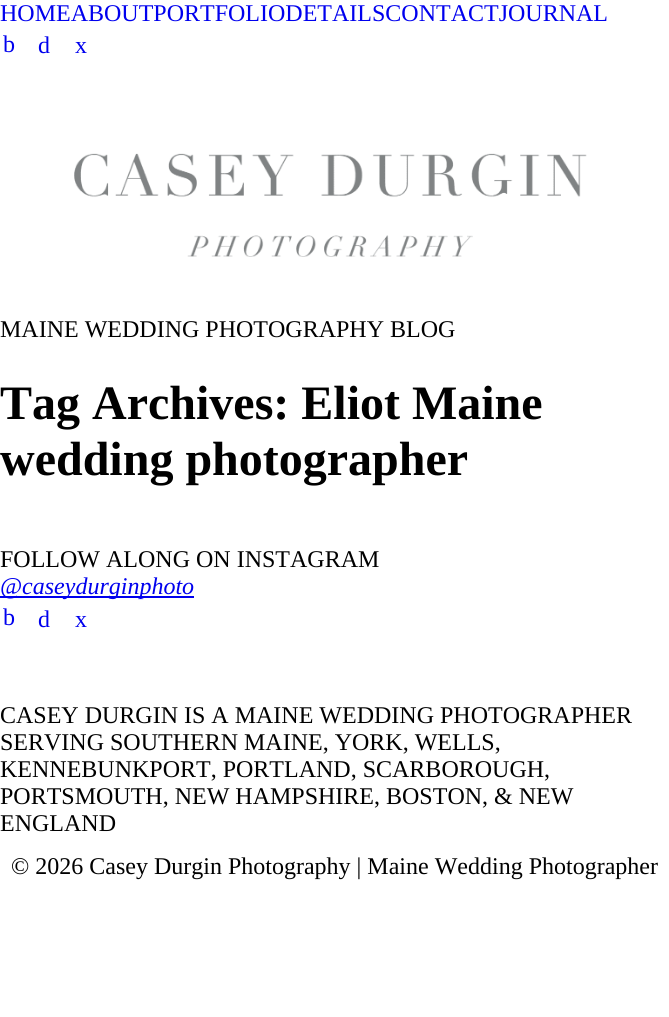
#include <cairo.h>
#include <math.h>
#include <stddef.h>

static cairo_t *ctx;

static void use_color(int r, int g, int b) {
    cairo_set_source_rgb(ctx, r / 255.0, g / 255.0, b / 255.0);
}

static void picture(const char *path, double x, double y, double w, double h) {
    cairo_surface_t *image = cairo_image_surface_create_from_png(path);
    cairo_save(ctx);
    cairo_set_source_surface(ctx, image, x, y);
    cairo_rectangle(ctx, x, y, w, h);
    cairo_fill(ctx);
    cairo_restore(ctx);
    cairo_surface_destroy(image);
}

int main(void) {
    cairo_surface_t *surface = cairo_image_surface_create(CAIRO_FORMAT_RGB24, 669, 1017);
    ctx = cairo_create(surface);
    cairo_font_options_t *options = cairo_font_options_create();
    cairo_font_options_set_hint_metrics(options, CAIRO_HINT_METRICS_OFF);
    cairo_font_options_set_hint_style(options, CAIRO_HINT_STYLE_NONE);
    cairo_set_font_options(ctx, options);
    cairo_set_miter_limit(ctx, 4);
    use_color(255, 255, 255);
    cairo_paint(ctx);
    cairo_select_font_face(ctx, "Liberation Serif", CAIRO_FONT_SLANT_NORMAL, CAIRO_FONT_WEIGHT_NORMAL);
    cairo_set_font_size(ctx, 24);
    use_color(0, 0, 238);
    cairo_move_to(ctx, 0, 21);
    cairo_show_text(ctx, "HOMEABOUTPORTFOLIODETAILSCONTACTJOURNAL");
    cairo_move_to(ctx, 3, 52);
    cairo_show_text(ctx, "b");
    cairo_move_to(ctx, 38, 53);
    cairo_show_text(ctx, "d");
    cairo_move_to(ctx, 75, 53);
    cairo_show_text(ctx, "x");
    picture("img1.png", 74, 153, 513, 104);
    use_color(0, 0, 0);
    cairo_move_to(ctx, 0, 337);
    cairo_show_text(ctx, "MAINE WEDDING PHOTOGRAPHY BLOG");
    cairo_select_font_face(ctx, "Liberation Serif", CAIRO_FONT_SLANT_NORMAL, CAIRO_FONT_WEIGHT_BOLD);
    cairo_set_font_size(ctx, 48);
    cairo_move_to(ctx, 0, 419);
    cairo_show_text(ctx, "Tag Archives: Eliot Maine");
    cairo_move_to(ctx, 0, 475);
    cairo_show_text(ctx, "wedding photographer");
    cairo_select_font_face(ctx, "Liberation Serif", CAIRO_FONT_SLANT_NORMAL, CAIRO_FONT_WEIGHT_NORMAL);
    cairo_set_font_size(ctx, 24);
    cairo_move_to(ctx, 0, 567);
    cairo_show_text(ctx, "FOLLOW ALONG ON INSTAGRAM");
    use_color(0, 0, 238);
    cairo_rectangle(ctx, 0, 596, 194, 2);
    cairo_fill(ctx);
    cairo_select_font_face(ctx, "Liberation Serif", CAIRO_FONT_SLANT_ITALIC, CAIRO_FONT_WEIGHT_NORMAL);
    cairo_move_to(ctx, 0, 594);
    cairo_show_text(ctx, "@caseydurginphoto");
    cairo_select_font_face(ctx, "Liberation Serif", CAIRO_FONT_SLANT_NORMAL, CAIRO_FONT_WEIGHT_NORMAL);
    cairo_move_to(ctx, 3, 625);
    cairo_show_text(ctx, "b");
    cairo_move_to(ctx, 38, 627);
    cairo_show_text(ctx, "d");
    cairo_move_to(ctx, 75, 627);
    cairo_show_text(ctx, "x");
    use_color(0, 0, 0);
    cairo_move_to(ctx, 0, 723);
    cairo_show_text(ctx, "CASEY DURGIN IS A MAINE WEDDING PHOTOGRAPHER");
    cairo_move_to(ctx, 0, 750);
    cairo_show_text(ctx, "SERVING SOUTHERN MAINE, YORK, WELLS,");
    cairo_move_to(ctx, 0, 777);
    cairo_show_text(ctx, "KENNEBUNKPORT, PORTLAND, SCARBOROUGH,");
    cairo_move_to(ctx, 0, 804);
    cairo_show_text(ctx, "PORTSMOUTH, NEW HAMPSHIRE, BOSTON, & NEW");
    cairo_move_to(ctx, 0, 831);
    cairo_show_text(ctx, "ENGLAND");
    cairo_move_to(ctx, 11, 874);
    cairo_show_text(ctx, "© 2026 Casey Durgin Photography | Maine Wedding Photographer");
    cairo_surface_write_to_png(surface, "result.png");
    cairo_font_options_destroy(options);
    cairo_destroy(ctx);
    cairo_surface_destroy(surface);
    return 0;
}
